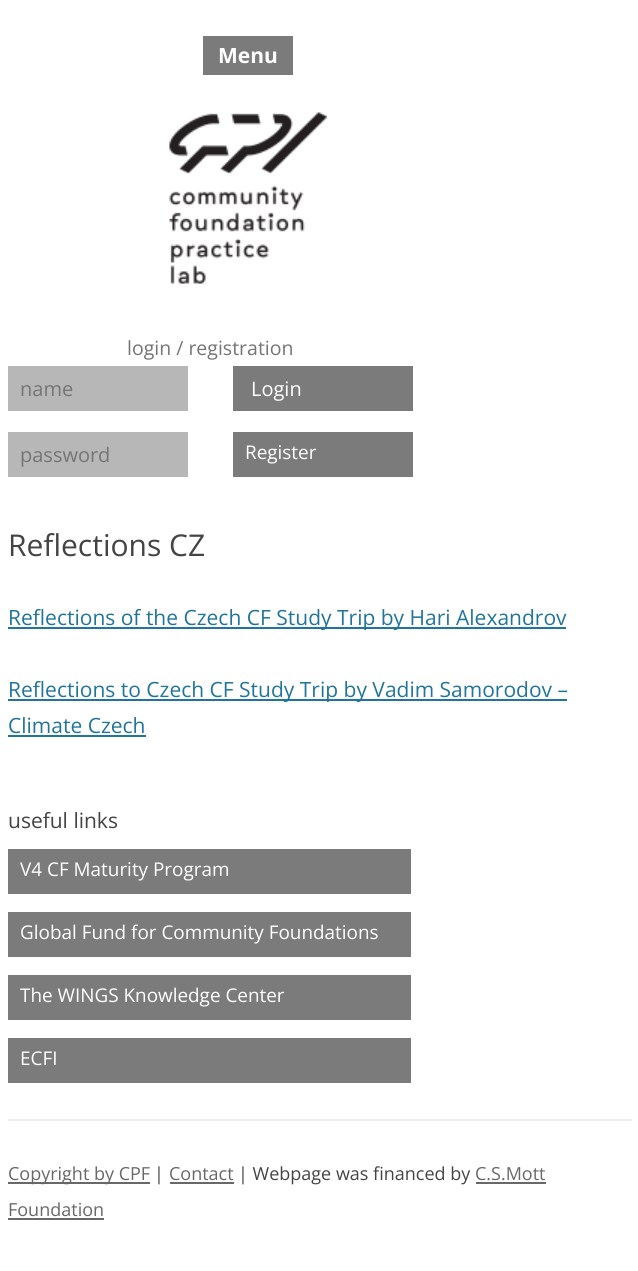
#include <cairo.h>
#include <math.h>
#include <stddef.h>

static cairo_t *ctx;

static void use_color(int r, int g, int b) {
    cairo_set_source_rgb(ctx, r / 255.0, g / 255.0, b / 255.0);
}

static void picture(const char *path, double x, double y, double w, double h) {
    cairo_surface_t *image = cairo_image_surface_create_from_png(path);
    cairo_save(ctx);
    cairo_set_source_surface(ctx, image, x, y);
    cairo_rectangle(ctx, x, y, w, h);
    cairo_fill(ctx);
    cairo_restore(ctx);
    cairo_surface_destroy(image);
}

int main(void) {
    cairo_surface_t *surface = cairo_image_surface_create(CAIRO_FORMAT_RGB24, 638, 1271);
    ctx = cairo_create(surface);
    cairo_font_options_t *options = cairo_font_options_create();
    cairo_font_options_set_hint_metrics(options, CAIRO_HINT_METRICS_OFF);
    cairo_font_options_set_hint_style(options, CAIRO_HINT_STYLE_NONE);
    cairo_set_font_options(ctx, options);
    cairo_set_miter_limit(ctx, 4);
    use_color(255, 255, 255);
    cairo_paint(ctx);
    use_color(123, 123, 123);
    cairo_rectangle(ctx, 203, 36, 90, 39);
    cairo_fill(ctx);
    cairo_select_font_face(ctx, "Open Sans", CAIRO_FONT_SLANT_NORMAL, CAIRO_FONT_WEIGHT_BOLD);
    cairo_set_font_size(ctx, 21);
    use_color(255, 255, 255);
    cairo_move_to(ctx, 218, 63);
    cairo_show_text(ctx, "Menu");
    picture("img1.png", 169, 112, 158, 172);
    cairo_select_font_face(ctx, "Open Sans", CAIRO_FONT_SLANT_NORMAL, CAIRO_FONT_WEIGHT_NORMAL);
    cairo_set_font_size(ctx, 19.5);
    use_color(117, 117, 117);
    cairo_move_to(ctx, 127, 355);
    cairo_show_text(ctx, "login / registration");
    use_color(183, 183, 183);
    cairo_rectangle(ctx, 8, 366, 180, 45);
    cairo_fill(ctx);
    cairo_set_font_size(ctx, 20);
    use_color(117, 117, 117);
    cairo_move_to(ctx, 20, 396);
    cairo_show_text(ctx, "name");
    use_color(183, 183, 183);
    cairo_rectangle(ctx, 8, 432, 180, 45);
    cairo_fill(ctx);
    use_color(117, 117, 117);
    cairo_move_to(ctx, 20, 462);
    cairo_show_text(ctx, "password");
    use_color(123, 123, 123);
    cairo_rectangle(ctx, 233, 366, 180, 45);
    cairo_fill(ctx);
    use_color(255, 255, 255);
    cairo_move_to(ctx, 251, 396);
    cairo_show_text(ctx, "Login");
    use_color(123, 123, 123);
    cairo_rectangle(ctx, 233, 432, 180, 45);
    cairo_fill(ctx);
    cairo_set_font_size(ctx, 18.9);
    use_color(255, 255, 255);
    cairo_move_to(ctx, 245, 459);
    cairo_show_text(ctx, "Register");
    cairo_set_font_size(ctx, 30);
    use_color(68, 68, 68);
    cairo_move_to(ctx, 8, 556);
    cairo_show_text(ctx, "Reflections CZ");
    use_color(33, 117, 155);
    cairo_rectangle(ctx, 8, 627, 558, 2);
    cairo_fill(ctx);
    cairo_set_font_size(ctx, 21);
    cairo_move_to(ctx, 8, 625);
    cairo_show_text(ctx, "Reflections of the Czech CF Study Trip by Hari Alexandrov");
    cairo_rectangle(ctx, 8, 699, 559, 2);
    cairo_fill(ctx);
    cairo_move_to(ctx, 8, 697);
    cairo_show_text(ctx, "Reflections to Czech CF Study Trip by Vadim Samorodov –");
    cairo_move_to(ctx, 8, 733);
    cairo_show_text(ctx, "Climate Czech");
    cairo_rectangle(ctx, 8, 735, 138, 2);
    cairo_fill(ctx);
    use_color(68, 68, 68);
    cairo_move_to(ctx, 8, 828);
    cairo_show_text(ctx, "useful links");
    use_color(123, 123, 123);
    cairo_rectangle(ctx, 8, 849, 403, 45);
    cairo_fill(ctx);
    cairo_set_font_size(ctx, 18.9);
    use_color(255, 255, 255);
    cairo_move_to(ctx, 20, 876);
    cairo_show_text(ctx, "V4 CF Maturity Program");
    use_color(123, 123, 123);
    cairo_rectangle(ctx, 8, 912, 403, 45);
    cairo_fill(ctx);
    use_color(255, 255, 255);
    cairo_move_to(ctx, 20, 939);
    cairo_show_text(ctx, "Global Fund for Community Foundations");
    use_color(123, 123, 123);
    cairo_rectangle(ctx, 8, 975, 403, 45);
    cairo_fill(ctx);
    use_color(255, 255, 255);
    cairo_move_to(ctx, 20, 1002);
    cairo_show_text(ctx, "The WINGS Knowledge Center");
    use_color(123, 123, 123);
    cairo_rectangle(ctx, 8, 1038, 403, 45);
    cairo_fill(ctx);
    use_color(255, 255, 255);
    cairo_move_to(ctx, 20, 1065);
    cairo_show_text(ctx, "ECFI");
    use_color(237, 237, 237);
    cairo_rectangle(ctx, 8, 1119, 624, 2);
    cairo_fill(ctx);
    use_color(104, 104, 104);
    cairo_rectangle(ctx, 8, 1182, 142, 2);
    cairo_fill(ctx);
    cairo_set_font_size(ctx, 18);
    cairo_move_to(ctx, 8, 1180);
    cairo_show_text(ctx, "Copyright by CPF");
    use_color(68, 68, 68);
    cairo_move_to(ctx, 154, 1180);
    cairo_show_text(ctx, "|");
    use_color(104, 104, 104);
    cairo_move_to(ctx, 169, 1180);
    cairo_show_text(ctx, "Contact");
    cairo_rectangle(ctx, 170, 1182, 64, 2);
    cairo_fill(ctx);
    use_color(68, 68, 68);
    cairo_move_to(ctx, 238, 1180);
    cairo_show_text(ctx, "| Webpage was financed by");
    use_color(104, 104, 104);
    cairo_move_to(ctx, 475, 1180);
    cairo_show_text(ctx, "C.S.Mott");
    cairo_rectangle(ctx, 476, 1182, 70, 2);
    cairo_fill(ctx);
    cairo_move_to(ctx, 8, 1216);
    cairo_show_text(ctx, "Foundation");
    cairo_rectangle(ctx, 8, 1218, 96, 2);
    cairo_fill(ctx);
    cairo_surface_write_to_png(surface, "result.png");
    cairo_font_options_destroy(options);
    cairo_destroy(ctx);
    cairo_surface_destroy(surface);
    return 0;
}
